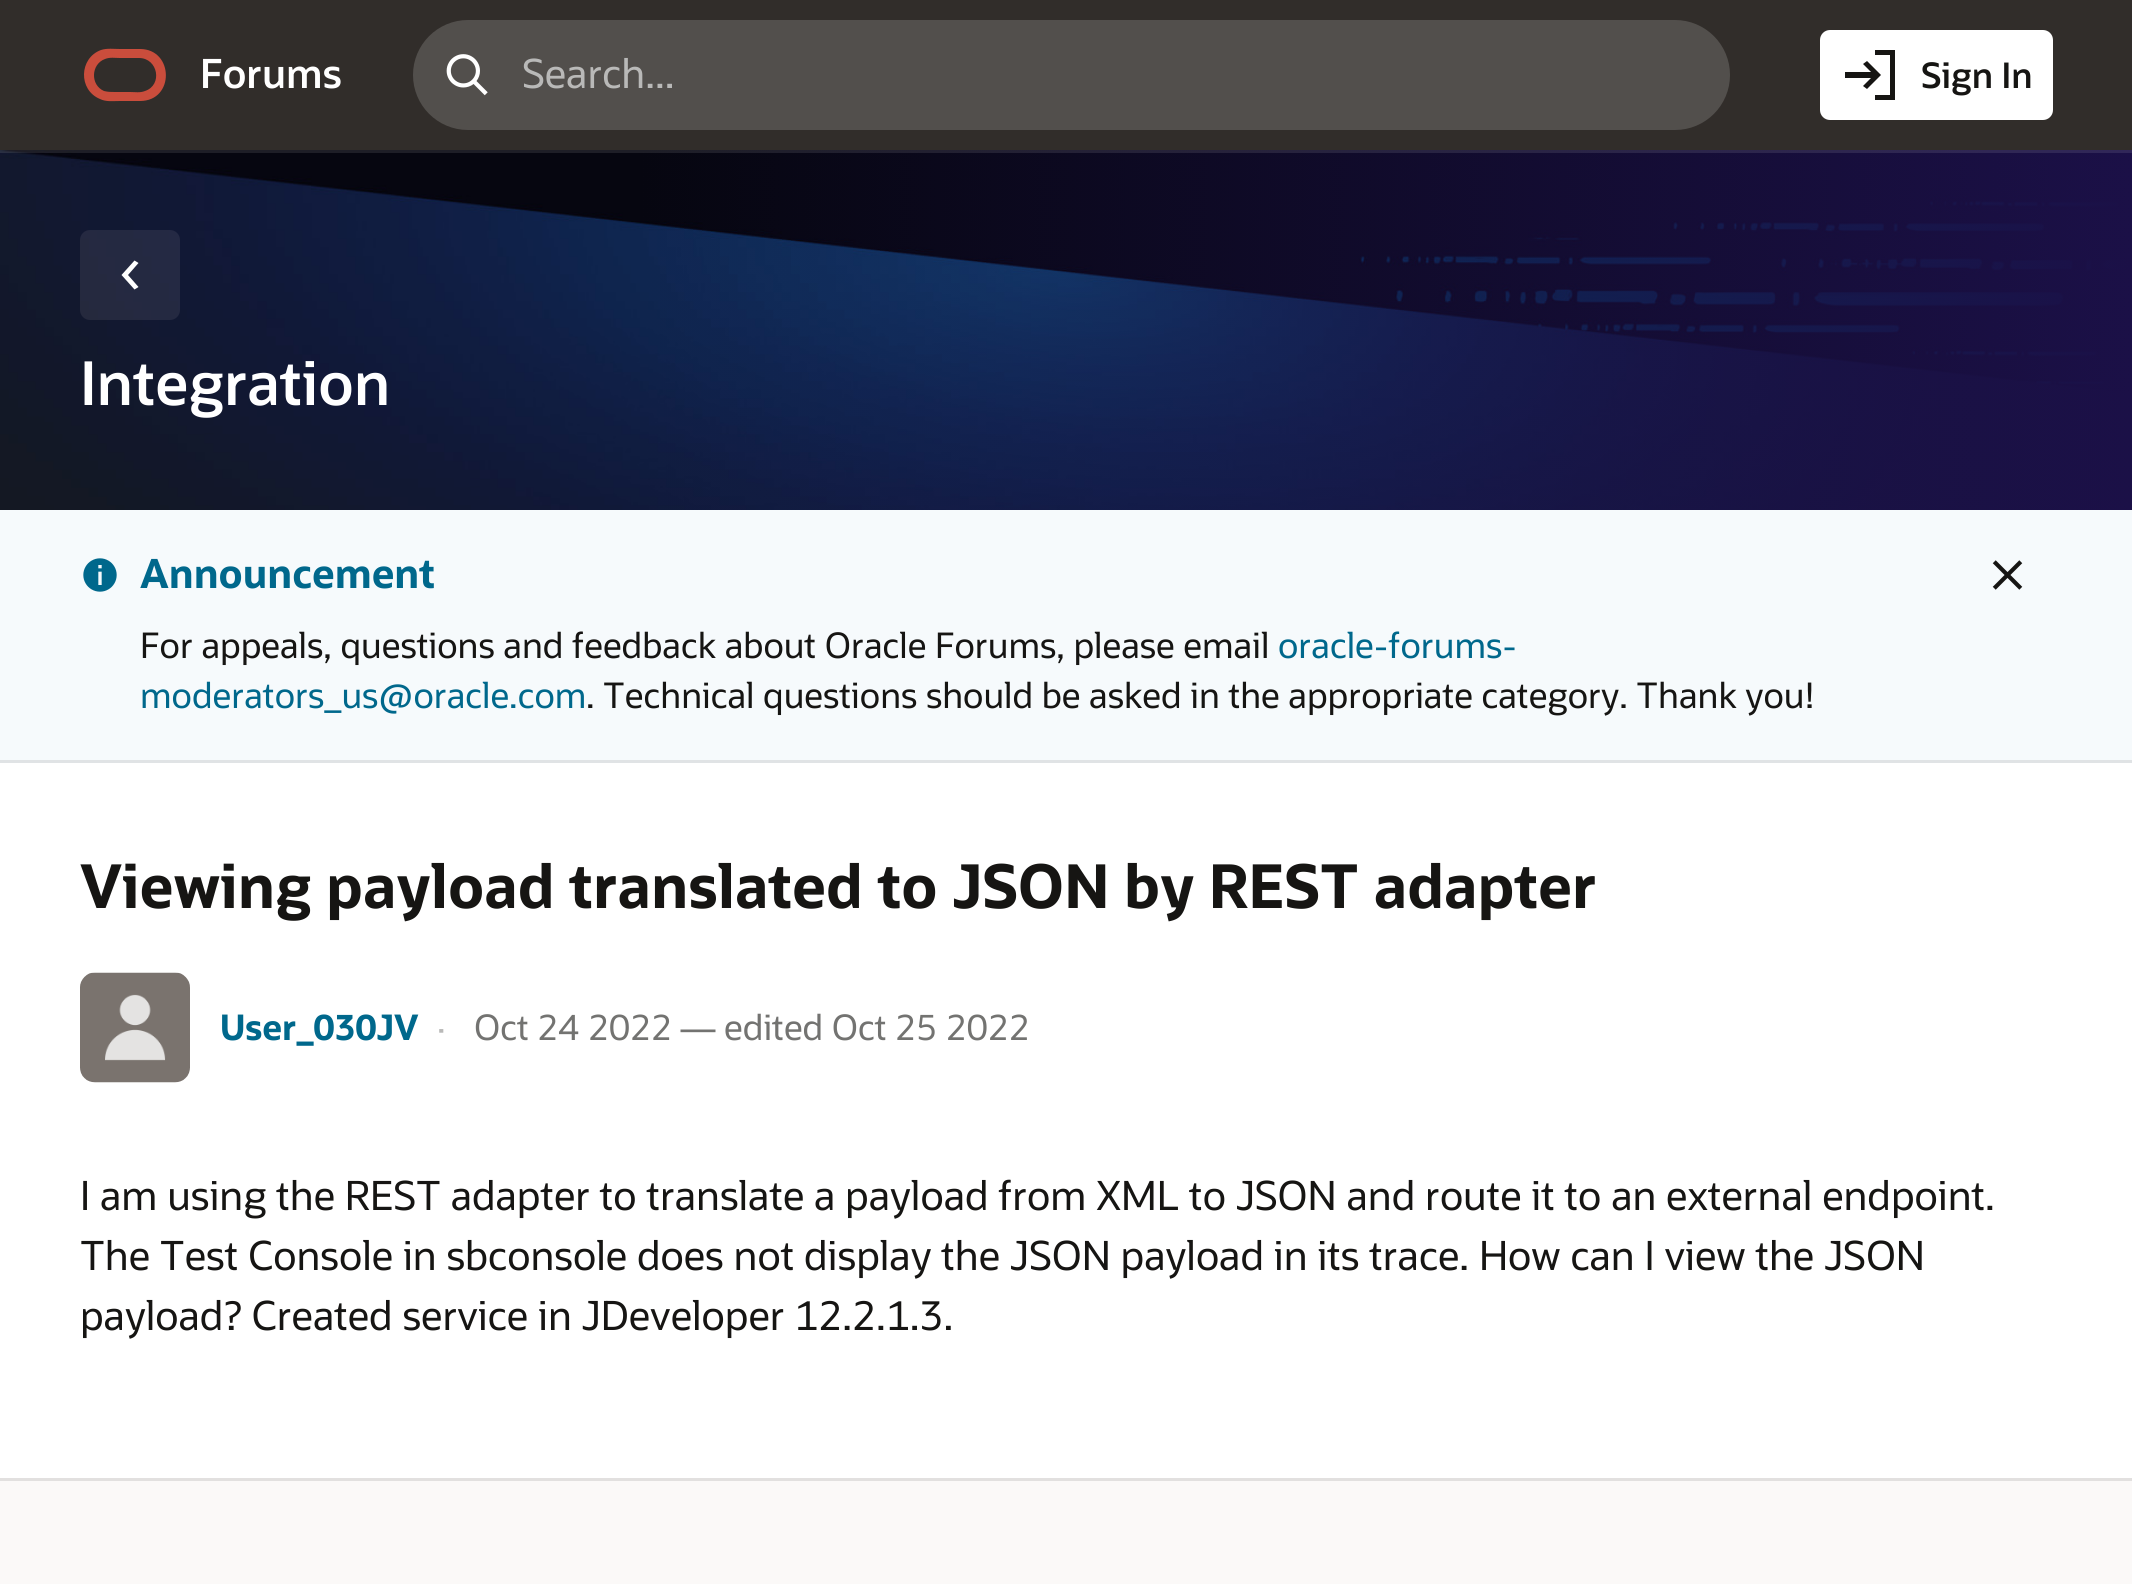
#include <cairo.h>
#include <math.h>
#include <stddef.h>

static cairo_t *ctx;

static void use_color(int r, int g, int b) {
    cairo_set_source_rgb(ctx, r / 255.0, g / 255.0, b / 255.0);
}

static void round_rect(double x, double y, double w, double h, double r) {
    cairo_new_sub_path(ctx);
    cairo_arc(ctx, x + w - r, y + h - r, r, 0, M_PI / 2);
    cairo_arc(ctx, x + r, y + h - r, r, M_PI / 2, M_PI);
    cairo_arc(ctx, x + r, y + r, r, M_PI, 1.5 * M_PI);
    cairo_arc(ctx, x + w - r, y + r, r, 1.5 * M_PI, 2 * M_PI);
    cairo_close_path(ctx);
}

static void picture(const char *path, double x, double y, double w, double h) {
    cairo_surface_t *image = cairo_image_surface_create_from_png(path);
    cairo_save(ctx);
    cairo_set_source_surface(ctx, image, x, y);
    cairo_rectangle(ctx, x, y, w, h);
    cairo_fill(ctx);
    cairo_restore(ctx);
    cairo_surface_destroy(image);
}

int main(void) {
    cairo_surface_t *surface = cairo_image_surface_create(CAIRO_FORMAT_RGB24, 2132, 1584);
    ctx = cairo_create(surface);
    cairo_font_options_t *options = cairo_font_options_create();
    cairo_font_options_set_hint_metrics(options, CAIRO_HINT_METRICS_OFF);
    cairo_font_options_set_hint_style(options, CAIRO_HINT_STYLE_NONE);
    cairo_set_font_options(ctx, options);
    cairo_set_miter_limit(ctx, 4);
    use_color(255, 255, 255);
    cairo_paint(ctx);
    picture("img2.png", 0, 150, 2132, 360);
    cairo_rectangle(ctx, -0.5, -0.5, 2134, 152);
    cairo_set_source_rgba(ctx, 1, 1, 1, 0.1);
    cairo_set_line_width(ctx, 3);
    cairo_stroke(ctx);
    use_color(49, 45, 42);
    cairo_rectangle(ctx, 0, 0, 2132, 150);
    cairo_fill(ctx);
    use_color(202, 77, 60);
    cairo_new_path(ctx);
    cairo_move_to(ctx, 140, 49);
    cairo_curve_to(ctx, 174, 49, 175, 101, 140, 101);
    cairo_line_to(ctx, 120, 101);
    cairo_curve_to(ctx, 113, 101, 106, 102, 100, 99);
    cairo_curve_to(ctx, 78, 90, 79, 58, 101, 50);
    cairo_curve_to(ctx, 107, 48, 114, 49, 120, 49);
    cairo_close_path(ctx);
    cairo_move_to(ctx, 139, 58);
    cairo_line_to(ctx, 120, 58);
    cairo_curve_to(ctx, 115, 58, 110, 57, 105, 59);
    cairo_curve_to(ctx, 91, 64, 90, 85, 104, 91);
    cairo_curve_to(ctx, 108, 92, 111, 92, 115, 92);
    cairo_line_to(ctx, 130, 92);
    cairo_curve_to(ctx, 135, 92, 140, 93, 145, 91);
    cairo_curve_to(ctx, 163, 85, 158, 58, 139, 58);
    cairo_close_path(ctx);
    cairo_fill(ctx);
    cairo_select_font_face(ctx, "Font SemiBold", CAIRO_FONT_SLANT_NORMAL, CAIRO_FONT_WEIGHT_NORMAL);
    cairo_set_font_size(ctx, 40);
    use_color(255, 255, 255);
    cairo_move_to(ctx, 200, 88);
    cairo_show_text(ctx, "Forums");
    use_color(82, 79, 76);
    round_rect(413, 20, 1317, 110, 55);
    cairo_fill(ctx);
    picture("img1.png", 446, 54, 42, 42);
    cairo_select_font_face(ctx, "Font", CAIRO_FONT_SLANT_NORMAL, CAIRO_FONT_WEIGHT_NORMAL);
    use_color(185, 185, 184);
    cairo_move_to(ctx, 522, 88);
    cairo_show_text(ctx, "Search...");
    use_color(255, 255, 255);
    round_rect(1820, 30, 233, 90, 10);
    cairo_fill(ctx);
    use_color(22, 21, 19);
    cairo_new_path(ctx);
    cairo_move_to(ctx, 1895, 50);
    cairo_line_to(ctx, 1895, 100);
    cairo_line_to(ctx, 1875, 100);
    cairo_line_to(ctx, 1875, 95);
    cairo_line_to(ctx, 1890, 95);
    cairo_line_to(ctx, 1890, 55);
    cairo_line_to(ctx, 1875, 55);
    cairo_line_to(ctx, 1875, 50);
    cairo_close_path(ctx);
    cairo_move_to(ctx, 1867, 61);
    cairo_line_to(ctx, 1881, 75);
    cairo_line_to(ctx, 1867, 89);
    cairo_line_to(ctx, 1863, 86);
    cairo_line_to(ctx, 1871, 78);
    cairo_line_to(ctx, 1845, 78);
    cairo_line_to(ctx, 1845, 72);
    cairo_line_to(ctx, 1871, 72);
    cairo_line_to(ctx, 1863, 64);
    cairo_close_path(ctx);
    cairo_fill(ctx);
    cairo_select_font_face(ctx, "Font SemiBold", CAIRO_FONT_SLANT_NORMAL, CAIRO_FONT_WEIGHT_NORMAL);
    cairo_set_font_size(ctx, 35);
    cairo_move_to(ctx, 1921, 88);
    cairo_show_text(ctx, "Sign In");
    cairo_set_source_rgba(ctx, 0.984, 0.976, 0.973, 0.08);
    round_rect(80, 230, 100, 90, 10);
    cairo_fill(ctx);
    use_color(255, 255, 255);
    cairo_new_path(ctx);
    cairo_move_to(ctx, 138.5, 287);
    cairo_line_to(ctx, 134.5, 289.5);
    cairo_line_to(ctx, 121.5, 275);
    cairo_line_to(ctx, 134.5, 260.5);
    cairo_line_to(ctx, 138.5, 263);
    cairo_line_to(ctx, 128, 275);
    cairo_close_path(ctx);
    cairo_fill(ctx);
    cairo_set_font_size(ctx, 60);
    cairo_move_to(ctx, 80, 405);
    cairo_show_text(ctx, "Integration");
    use_color(251, 249, 248);
    cairo_rectangle(ctx, 0, 1481, 2132, 103);
    cairo_fill(ctx);
    use_color(246, 250, 252);
    cairo_rectangle(ctx, 0, 510, 2132, 250);
    cairo_fill(ctx);
    use_color(224, 227, 229);
    cairo_rectangle(ctx, 0, 760, 2132, 3);
    cairo_fill(ctx);
    picture("img3.png", 83, 558, 34, 34);
    cairo_select_font_face(ctx, "Font", CAIRO_FONT_SLANT_NORMAL, CAIRO_FONT_WEIGHT_BOLD);
    cairo_set_font_size(ctx, 40);
    use_color(0, 104, 140);
    cairo_move_to(ctx, 140, 588);
    cairo_show_text(ctx, "Announcement");
    cairo_select_font_face(ctx, "Font", CAIRO_FONT_SLANT_NORMAL, CAIRO_FONT_WEIGHT_NORMAL);
    cairo_set_font_size(ctx, 35);
    use_color(22, 21, 19);
    cairo_move_to(ctx, 140, 658);
    cairo_show_text(ctx, "For appeals, questions and feedback about Oracle Forums, please email");
    use_color(0, 104, 140);
    cairo_move_to(ctx, 1278, 658);
    cairo_show_text(ctx, "oracle-forums-");
    cairo_move_to(ctx, 140, 708);
    cairo_show_text(ctx, "moderators_us@oracle.com");
    use_color(22, 21, 19);
    cairo_move_to(ctx, 586, 708);
    cairo_show_text(ctx, ". Technical questions should be asked in the appropriate category. Thank you!");
    picture("img4.png", 1992, 560, 31, 30);
    cairo_select_font_face(ctx, "Font", CAIRO_FONT_SLANT_NORMAL, CAIRO_FONT_WEIGHT_BOLD);
    cairo_set_font_size(ctx, 60);
    cairo_move_to(ctx, 80, 908);
    cairo_show_text(ctx, "Viewing payload translated to JSON by REST adapter");
    picture("img5.png", 80, 972, 110, 111);
    cairo_set_font_size(ctx, 35);
    use_color(0, 104, 140);
    cairo_move_to(ctx, 220, 1040);
    cairo_show_text(ctx, "User_030JV");
    cairo_select_font_face(ctx, "Font", CAIRO_FONT_SLANT_NORMAL, CAIRO_FONT_WEIGHT_NORMAL);
    use_color(185, 185, 184);
    cairo_move_to(ctx, 437, 1040);
    cairo_show_text(ctx, "·");
    use_color(115, 115, 113);
    cairo_move_to(ctx, 474, 1040);
    cairo_show_text(ctx, "Oct 24 2022 — edited Oct 25 2022");
    cairo_set_font_size(ctx, 40);
    use_color(22, 21, 19);
    cairo_move_to(ctx, 80, 1210);
    cairo_show_text(ctx, "I am using the REST adapter to translate a payload from XML to JSON and route it to an external endpoint.");
    cairo_move_to(ctx, 80, 1270);
    cairo_show_text(ctx, "The Test Console in sbconsole does not display the JSON payload in its trace. How can I view the JSON");
    cairo_move_to(ctx, 80, 1330);
    cairo_show_text(ctx, "payload? Created service in JDeveloper 12.2.1.3.");
    use_color(226, 224, 223);
    cairo_rectangle(ctx, 0, 1478, 2132, 3);
    cairo_fill(ctx);
    cairo_surface_write_to_png(surface, "result.png");
    cairo_font_options_destroy(options);
    cairo_destroy(ctx);
    cairo_surface_destroy(surface);
    return 0;
}
